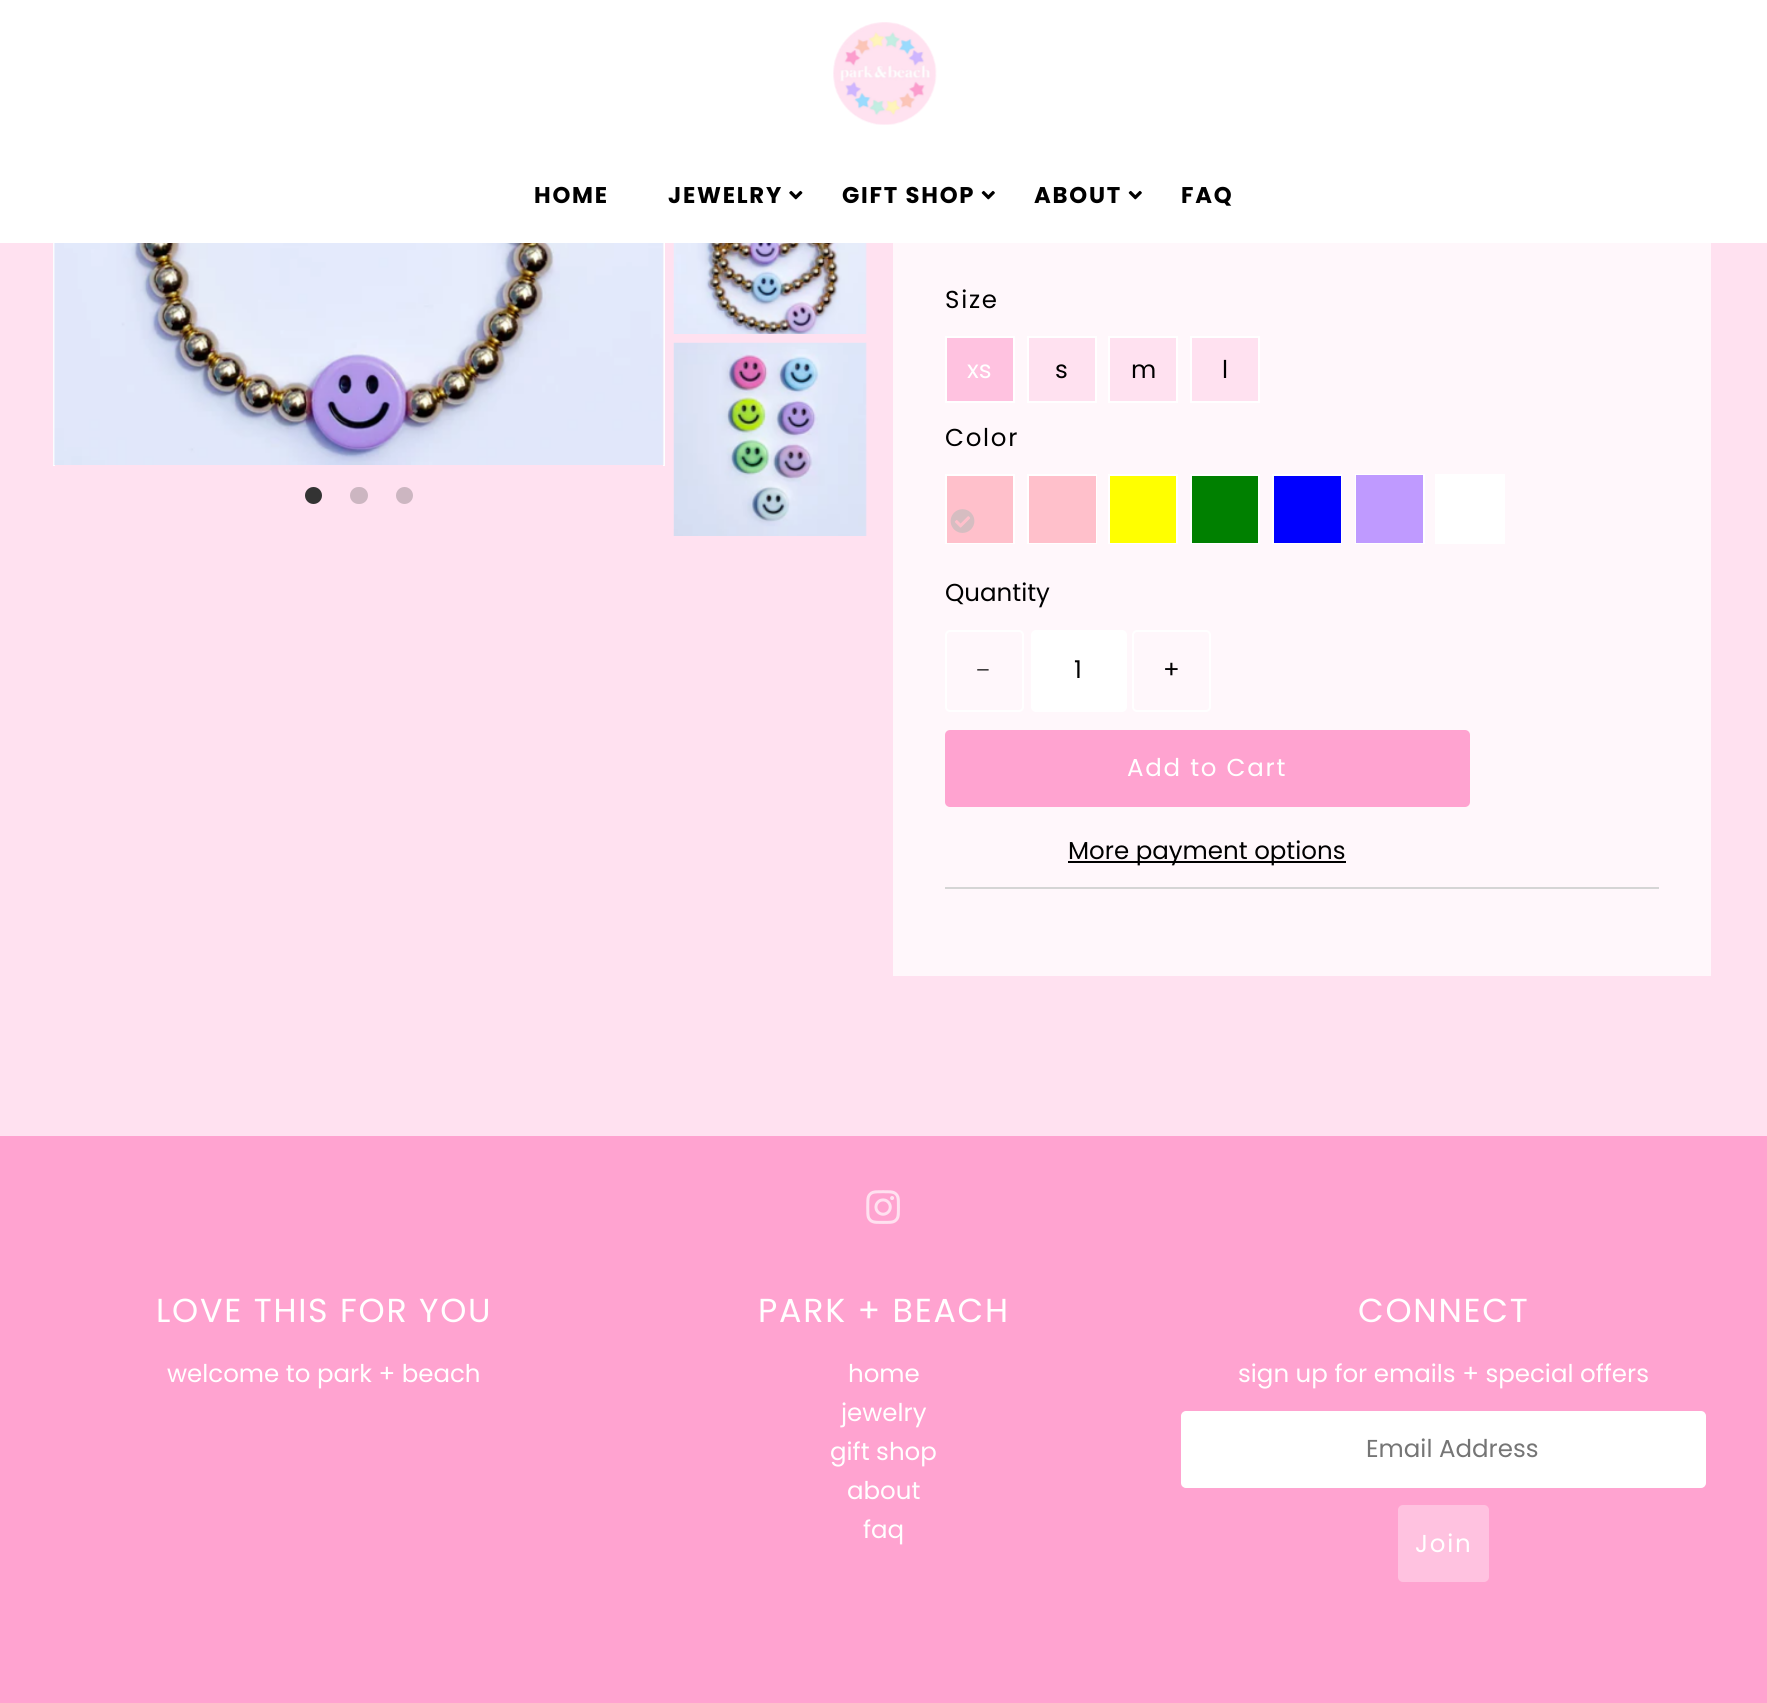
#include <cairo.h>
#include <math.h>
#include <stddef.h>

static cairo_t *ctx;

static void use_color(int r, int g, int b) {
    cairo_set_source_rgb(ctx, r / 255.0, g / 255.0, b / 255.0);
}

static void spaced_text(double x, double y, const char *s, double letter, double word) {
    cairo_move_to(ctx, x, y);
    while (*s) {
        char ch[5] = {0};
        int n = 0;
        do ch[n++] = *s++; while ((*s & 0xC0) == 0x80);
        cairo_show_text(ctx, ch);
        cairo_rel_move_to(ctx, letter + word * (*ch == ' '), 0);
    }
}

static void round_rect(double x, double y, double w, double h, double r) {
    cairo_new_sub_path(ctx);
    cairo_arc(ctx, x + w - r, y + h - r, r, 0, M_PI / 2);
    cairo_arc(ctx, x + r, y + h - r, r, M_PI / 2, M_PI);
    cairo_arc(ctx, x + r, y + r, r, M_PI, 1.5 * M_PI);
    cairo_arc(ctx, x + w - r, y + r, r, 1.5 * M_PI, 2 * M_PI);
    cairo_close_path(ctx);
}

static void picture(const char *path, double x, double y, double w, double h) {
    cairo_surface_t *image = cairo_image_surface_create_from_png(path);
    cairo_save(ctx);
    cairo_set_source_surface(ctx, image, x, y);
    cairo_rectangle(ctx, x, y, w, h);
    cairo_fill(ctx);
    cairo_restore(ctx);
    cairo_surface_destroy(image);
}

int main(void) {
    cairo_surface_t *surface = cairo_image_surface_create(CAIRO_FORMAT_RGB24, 1767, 1703);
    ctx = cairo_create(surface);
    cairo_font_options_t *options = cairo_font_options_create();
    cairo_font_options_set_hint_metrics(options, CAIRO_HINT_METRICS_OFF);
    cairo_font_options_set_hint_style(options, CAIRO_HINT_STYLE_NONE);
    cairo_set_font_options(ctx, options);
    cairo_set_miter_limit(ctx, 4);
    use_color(255, 225, 240);
    cairo_paint(ctx);
    cairo_save(ctx);
    cairo_rectangle(ctx, 53, 0, 612, 466);
    cairo_clip(ctx);
    cairo_rectangle(ctx, 54, -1, 610, 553);
    use_color(255, 255, 255);
    cairo_stroke(ctx);
    cairo_restore(ctx);
    use_color(255, 255, 255);
    cairo_rectangle(ctx, 0, 0, 1767, 243);
    cairo_fill(ctx);
    picture("img1.png", 833, 22, 104, 103);
    cairo_select_font_face(ctx, "Poppins", CAIRO_FONT_SLANT_NORMAL, CAIRO_FONT_WEIGHT_BOLD);
    cairo_set_font_size(ctx, 22.75);
    use_color(0, 0, 0);
    spaced_text(534, 203, "HOME", 1.75, 0);
    spaced_text(668, 203, "JEWELRY", 1.75, 0);
    picture("img2.png", 789, 190, 14, 10);
    spaced_text(842, 203, "GIFT SHOP", 1.75, 0);
    picture("img3.png", 981, 190, 14, 10);
    spaced_text(1034, 203, "ABOUT", 1.75, 0);
    picture("img3.png", 1128, 190, 14, 10);
    spaced_text(1181, 203, "FAQ", 1.75, 0);
    picture("img4.png", 53, 243, 611, 222);
    use_color(51, 51, 51);
    cairo_arc(ctx, 313.5, 495.5, 8.5, 0, 2 * M_PI);
    cairo_fill(ctx);
    use_color(204, 182, 193);
    round_rect(350, 487, 18, 17, 8.5);
    cairo_fill(ctx);
    cairo_arc(ctx, 404.5, 495.5, 8.5, 0, 2 * M_PI);
    cairo_fill(ctx);
    picture("img5.png", 673, 243, 194, 91);
    picture("img6.png", 673, 342, 194, 194);
    use_color(255, 247, 251);
    cairo_rectangle(ctx, 893, 243, 818, 733);
    cairo_fill(ctx);
    use_color(213, 213, 213);
    cairo_rectangle(ctx, 945, 887, 714, 2);
    cairo_fill(ctx);
    cairo_select_font_face(ctx, "Poppins", CAIRO_FONT_SLANT_NORMAL, CAIRO_FONT_WEIGHT_NORMAL);
    cairo_set_font_size(ctx, 24.5);
    use_color(0, 0, 0);
    spaced_text(945, 308, "Size", 1.75, 0);
    use_color(255, 194, 224);
    cairo_rectangle(ctx, 946, 337, 68, 65);
    cairo_fill_preserve(ctx);
    use_color(255, 255, 255);
    cairo_stroke(ctx);
    cairo_move_to(ctx, 967, 378);
    cairo_show_text(ctx, "xs");
    use_color(255, 225, 240);
    cairo_rectangle(ctx, 1028, 337, 68, 65);
    cairo_fill_preserve(ctx);
    use_color(255, 255, 255);
    cairo_stroke(ctx);
    use_color(0, 0, 0);
    cairo_move_to(ctx, 1055, 378);
    cairo_show_text(ctx, "s");
    use_color(255, 225, 240);
    cairo_rectangle(ctx, 1109, 337, 68, 65);
    cairo_fill_preserve(ctx);
    use_color(255, 255, 255);
    cairo_stroke(ctx);
    use_color(0, 0, 0);
    cairo_move_to(ctx, 1131, 378);
    cairo_show_text(ctx, "m");
    use_color(255, 225, 240);
    cairo_rectangle(ctx, 1191, 337, 68, 65);
    cairo_fill_preserve(ctx);
    use_color(255, 255, 255);
    cairo_stroke(ctx);
    use_color(0, 0, 0);
    cairo_move_to(ctx, 1222, 378);
    cairo_show_text(ctx, "l");
    spaced_text(945, 446, "Color", 1.75, 0);
    cairo_rectangle(ctx, 946, 475, 68, 68);
    use_color(255, 255, 255);
    cairo_stroke(ctx);
    use_color(255, 192, 203);
    cairo_rectangle(ctx, 947, 476, 66, 67);
    cairo_fill(ctx);
    picture("img7.png", 950, 509, 25, 24);
    cairo_rectangle(ctx, 1028, 475, 68, 68);
    use_color(255, 255, 255);
    cairo_stroke(ctx);
    use_color(255, 192, 203);
    cairo_rectangle(ctx, 1029, 476, 67, 67);
    cairo_fill(ctx);
    cairo_rectangle(ctx, 1109, 475, 68, 68);
    use_color(255, 255, 255);
    cairo_stroke(ctx);
    use_color(255, 255, 0);
    cairo_rectangle(ctx, 1110, 476, 66, 67);
    cairo_fill(ctx);
    cairo_rectangle(ctx, 1191, 475, 68, 68);
    use_color(255, 255, 255);
    cairo_stroke(ctx);
    use_color(0, 128, 0);
    cairo_rectangle(ctx, 1192, 476, 66, 67);
    cairo_fill(ctx);
    cairo_rectangle(ctx, 1273, 475, 68, 68);
    use_color(255, 255, 255);
    cairo_stroke(ctx);
    use_color(0, 0, 255);
    cairo_rectangle(ctx, 1274, 476, 67, 67);
    cairo_fill(ctx);
    cairo_rectangle(ctx, 1356, 475, 68, 68);
    use_color(255, 255, 255);
    cairo_stroke(ctx);
    use_color(191, 154, 255);
    cairo_rectangle(ctx, 1356, 475, 67, 68);
    cairo_fill(ctx);
    cairo_rectangle(ctx, 1436, 475, 68, 68);
    use_color(255, 255, 255);
    cairo_stroke(ctx);
    cairo_rectangle(ctx, 1437, 476, 66, 66);
    cairo_fill(ctx);
    use_color(0, 0, 0);
    cairo_move_to(ctx, 945, 601);
    cairo_show_text(ctx, "Quantity");
    round_rect(946, 631, 77, 80, 4);
    use_color(255, 255, 255);
    cairo_stroke(ctx);
    cairo_select_font_face(ctx, "Liberation Serif", CAIRO_FONT_SLANT_NORMAL, CAIRO_FONT_WEIGHT_NORMAL);
    use_color(0, 0, 0);
    spaced_text(976, 678, "−", 1.75, 0);
    use_color(255, 255, 255);
    round_rect(1031, 630, 96, 82, 5);
    cairo_fill(ctx);
    cairo_select_font_face(ctx, "Poppins", CAIRO_FONT_SLANT_NORMAL, CAIRO_FONT_WEIGHT_NORMAL);
    use_color(0, 0, 0);
    cairo_move_to(ctx, 1074, 678);
    cairo_show_text(ctx, "1");
    round_rect(1133, 631, 77, 80, 4);
    use_color(255, 255, 255);
    cairo_stroke(ctx);
    use_color(0, 0, 0);
    spaced_text(1163, 678, "+", 1.75, 0);
    use_color(255, 163, 208);
    round_rect(945, 730, 525, 77, 5);
    cairo_fill(ctx);
    use_color(255, 255, 255);
    spaced_text(1127, 776, "Add to Cart", 1.75, 0);
    use_color(0, 0, 0);
    cairo_rectangle(ctx, 1068, 861, 278, 2);
    cairo_fill(ctx);
    cairo_move_to(ctx, 1068, 859);
    cairo_show_text(ctx, "More payment options");
    use_color(255, 163, 208);
    cairo_rectangle(ctx, 0, 1136, 1767, 567);
    cairo_fill(ctx);
    picture("img8.png", 866, 1190, 34, 34);
    cairo_set_font_size(ctx, 33.25);
    use_color(255, 255, 255);
    spaced_text(156, 1322, "LOVE THIS FOR YOU", 1.75, 0);
    cairo_set_font_size(ctx, 24.5);
    cairo_move_to(ctx, 167, 1382);
    cairo_show_text(ctx, "welcome to park + beach");
    cairo_set_font_size(ctx, 33.25);
    spaced_text(758, 1322, "PARK + BEACH", 1.75, 0);
    cairo_set_font_size(ctx, 24.5);
    cairo_move_to(ctx, 848, 1382);
    cairo_show_text(ctx, "home");
    cairo_move_to(ctx, 841, 1421);
    cairo_show_text(ctx, "jewelry");
    cairo_move_to(ctx, 830, 1460);
    cairo_show_text(ctx, "gift shop");
    cairo_move_to(ctx, 847, 1499);
    cairo_show_text(ctx, "about");
    cairo_move_to(ctx, 863, 1538);
    cairo_show_text(ctx, "faq");
    cairo_set_font_size(ctx, 33.25);
    spaced_text(1358, 1322, "CONNECT", 1.75, 0);
    cairo_set_font_size(ctx, 24.5);
    cairo_move_to(ctx, 1238, 1382);
    cairo_show_text(ctx, "sign up for emails + special offers");
    round_rect(1182, 1412, 523, 75, 4);
    cairo_fill_preserve(ctx);
    cairo_stroke(ctx);
    use_color(117, 117, 117);
    cairo_move_to(ctx, 1366, 1457);
    cairo_show_text(ctx, "Email Address");
    use_color(255, 194, 224);
    round_rect(1398, 1505, 91, 77, 5);
    cairo_fill(ctx);
    use_color(255, 255, 255);
    spaced_text(1415, 1552, "Join", 1.75, 0);
    cairo_surface_write_to_png(surface, "result.png");
    cairo_font_options_destroy(options);
    cairo_destroy(ctx);
    cairo_surface_destroy(surface);
    return 0;
}
